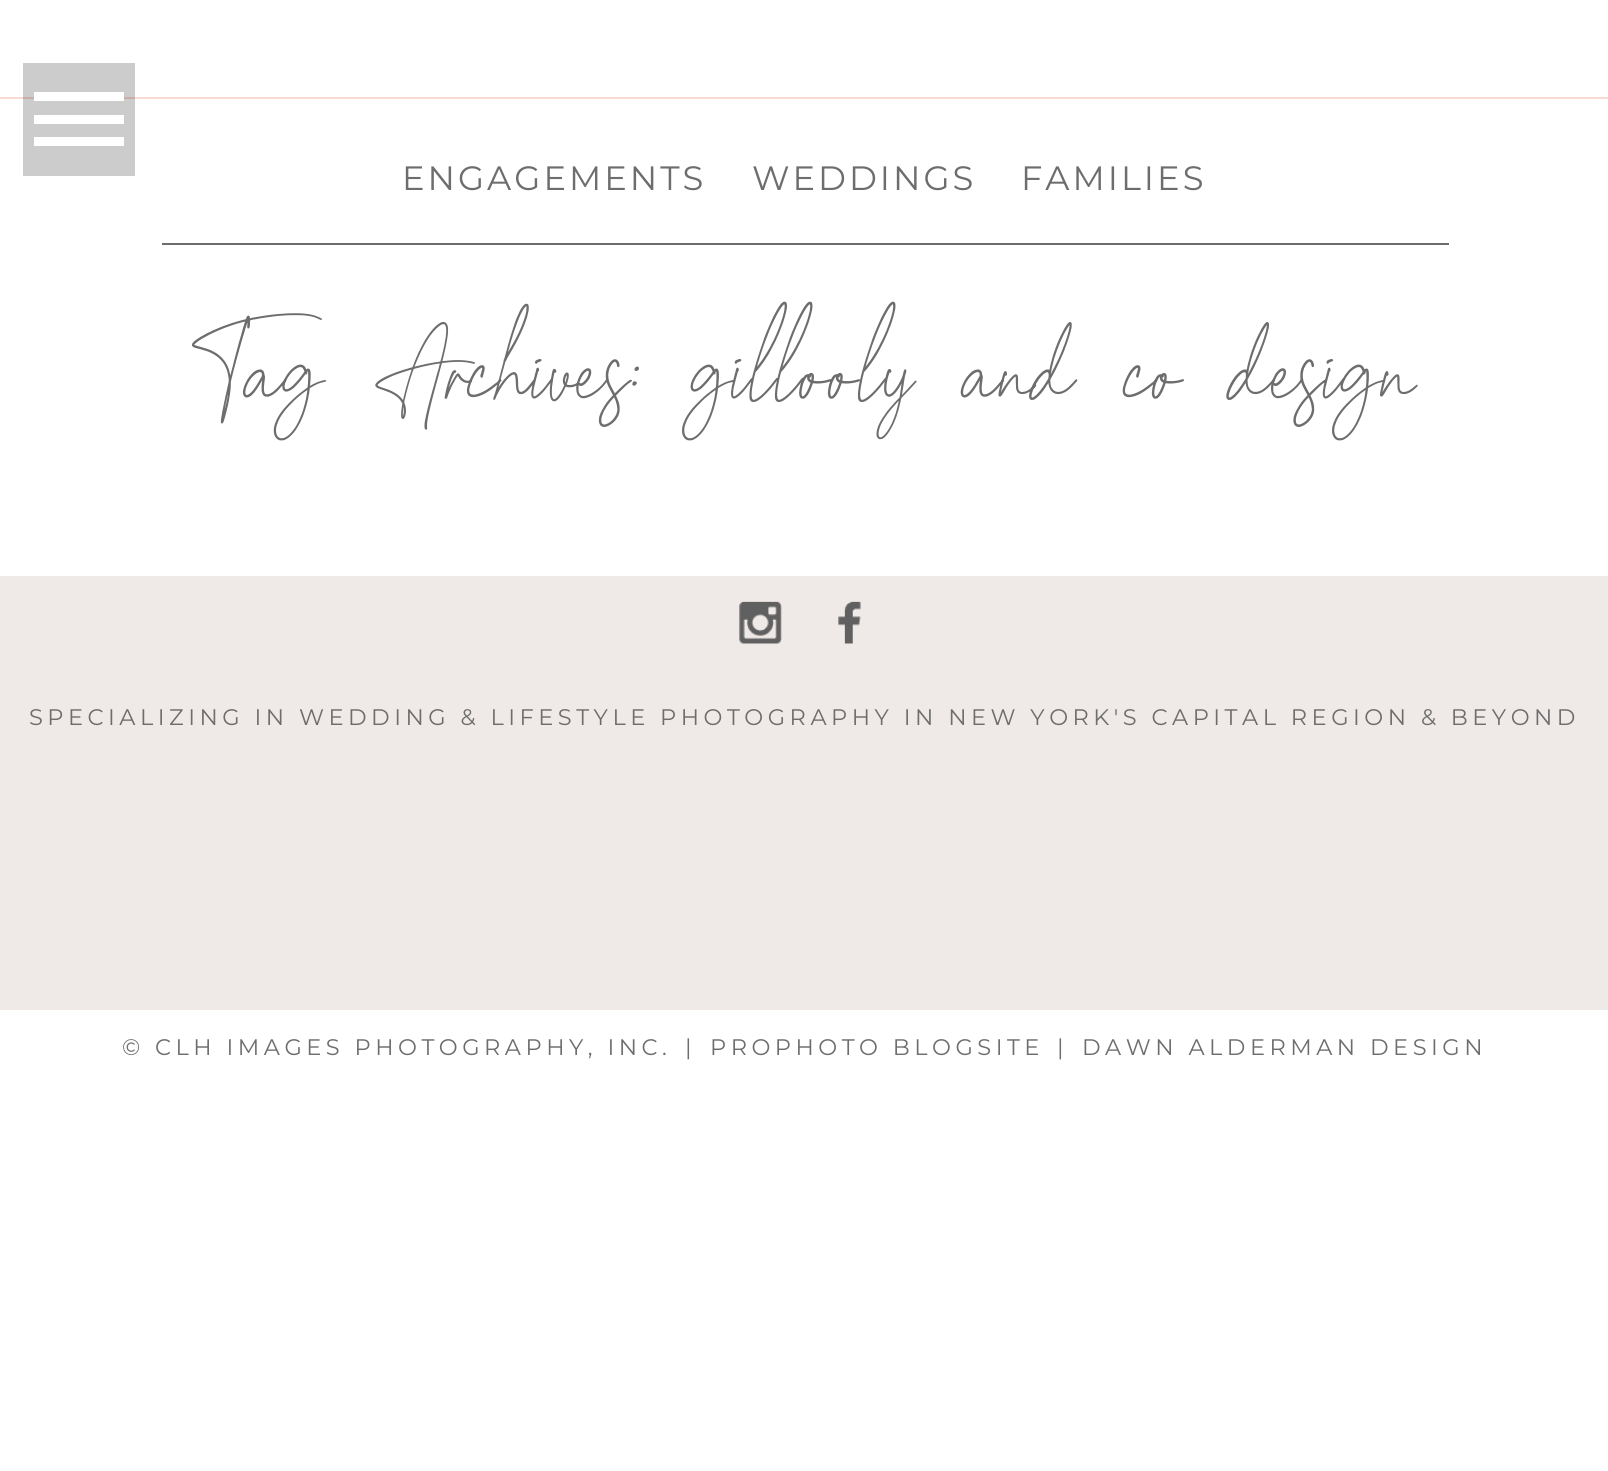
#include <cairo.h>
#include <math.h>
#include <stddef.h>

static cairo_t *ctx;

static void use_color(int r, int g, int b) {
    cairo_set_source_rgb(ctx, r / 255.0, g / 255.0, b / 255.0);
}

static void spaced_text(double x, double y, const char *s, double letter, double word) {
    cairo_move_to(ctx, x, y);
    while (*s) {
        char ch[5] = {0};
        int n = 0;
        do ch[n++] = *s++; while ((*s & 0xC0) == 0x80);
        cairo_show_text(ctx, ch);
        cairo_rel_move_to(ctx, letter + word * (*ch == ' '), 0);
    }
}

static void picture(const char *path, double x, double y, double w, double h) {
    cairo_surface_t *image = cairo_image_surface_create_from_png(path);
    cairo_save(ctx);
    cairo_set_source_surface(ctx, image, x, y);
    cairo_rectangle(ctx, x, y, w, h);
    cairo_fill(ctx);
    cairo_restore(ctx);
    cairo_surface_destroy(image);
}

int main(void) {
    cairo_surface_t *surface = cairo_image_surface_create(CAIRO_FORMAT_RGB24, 1608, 1471);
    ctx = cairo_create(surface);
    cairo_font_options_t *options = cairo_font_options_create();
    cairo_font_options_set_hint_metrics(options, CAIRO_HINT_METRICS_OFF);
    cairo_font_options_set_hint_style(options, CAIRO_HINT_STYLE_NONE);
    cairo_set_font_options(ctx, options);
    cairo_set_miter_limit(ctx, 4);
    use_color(255, 255, 255);
    cairo_paint(ctx);
    use_color(204, 204, 204);
    cairo_rectangle(ctx, 23, 63, 112, 113);
    cairo_fill(ctx);
    use_color(250, 218, 210);
    cairo_rectangle(ctx, 0, 97, 1608, 2);
    cairo_fill(ctx);
    use_color(200, 174, 168);
    cairo_rectangle(ctx, 23, 97, 112, 2);
    cairo_fill(ctx);
    use_color(255, 255, 255);
    cairo_rectangle(ctx, 34, 92, 90, 9);
    cairo_fill(ctx);
    cairo_rectangle(ctx, 34, 115, 90, 9);
    cairo_fill(ctx);
    cairo_rectangle(ctx, 34, 137, 90, 9);
    cairo_fill(ctx);
    use_color(109, 109, 109);
    cairo_rectangle(ctx, 162, 243, 1287, 2);
    cairo_fill(ctx);
    cairo_select_font_face(ctx, "Montserrat Thin", CAIRO_FONT_SLANT_NORMAL, CAIRO_FONT_WEIGHT_NORMAL);
    cairo_set_font_size(ctx, 33.75);
    spaced_text(402, 190, "ENGAGEMENTS", 3, 0);
    spaced_text(752, 190, "WEDDINGS", 3, 0);
    spaced_text(1021, 190, "FAMILIES", 3, 0);
    cairo_select_font_face(ctx, "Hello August", CAIRO_FONT_SLANT_NORMAL, CAIRO_FONT_WEIGHT_NORMAL);
    cairo_set_font_size(ctx, 90);
    cairo_move_to(ctx, 192, 402);
    cairo_show_text(ctx, "Tag Archives: gillooly and co design");
    use_color(239, 233, 231);
    cairo_rectangle(ctx, 0, 576, 1608, 434);
    cairo_fill(ctx);
    picture("img1.png", 739, 601, 43, 43);
    picture("img2.png", 838, 601, 23, 43);
    cairo_select_font_face(ctx, "Montserrat Thin", CAIRO_FONT_SLANT_NORMAL, CAIRO_FONT_WEIGHT_NORMAL);
    cairo_set_font_size(ctx, 22.5);
    use_color(109, 109, 109);
    spaced_text(29, 725, "SPECIALIZING IN WEDDING & LIFESTYLE PHOTOGRAPHY IN NEW YORK'S CAPITAL REGION & BEYOND", 4.5, 0);
    spaced_text(122, 1055, "© CLH IMAGES PHOTOGRAPHY, INC.", 4.5, 0);
    spaced_text(685, 1055, "|", 4.5, 0);
    spaced_text(710, 1055, "PROPHOTO BLOGSITE", 4.5, 0);
    spaced_text(1057, 1055, "|", 4.5, 0);
    spaced_text(1082, 1055, "DAWN ALDERMAN DESIGN", 4.5, 0);
    cairo_surface_write_to_png(surface, "result.png");
    cairo_font_options_destroy(options);
    cairo_destroy(ctx);
    cairo_surface_destroy(surface);
    return 0;
}
